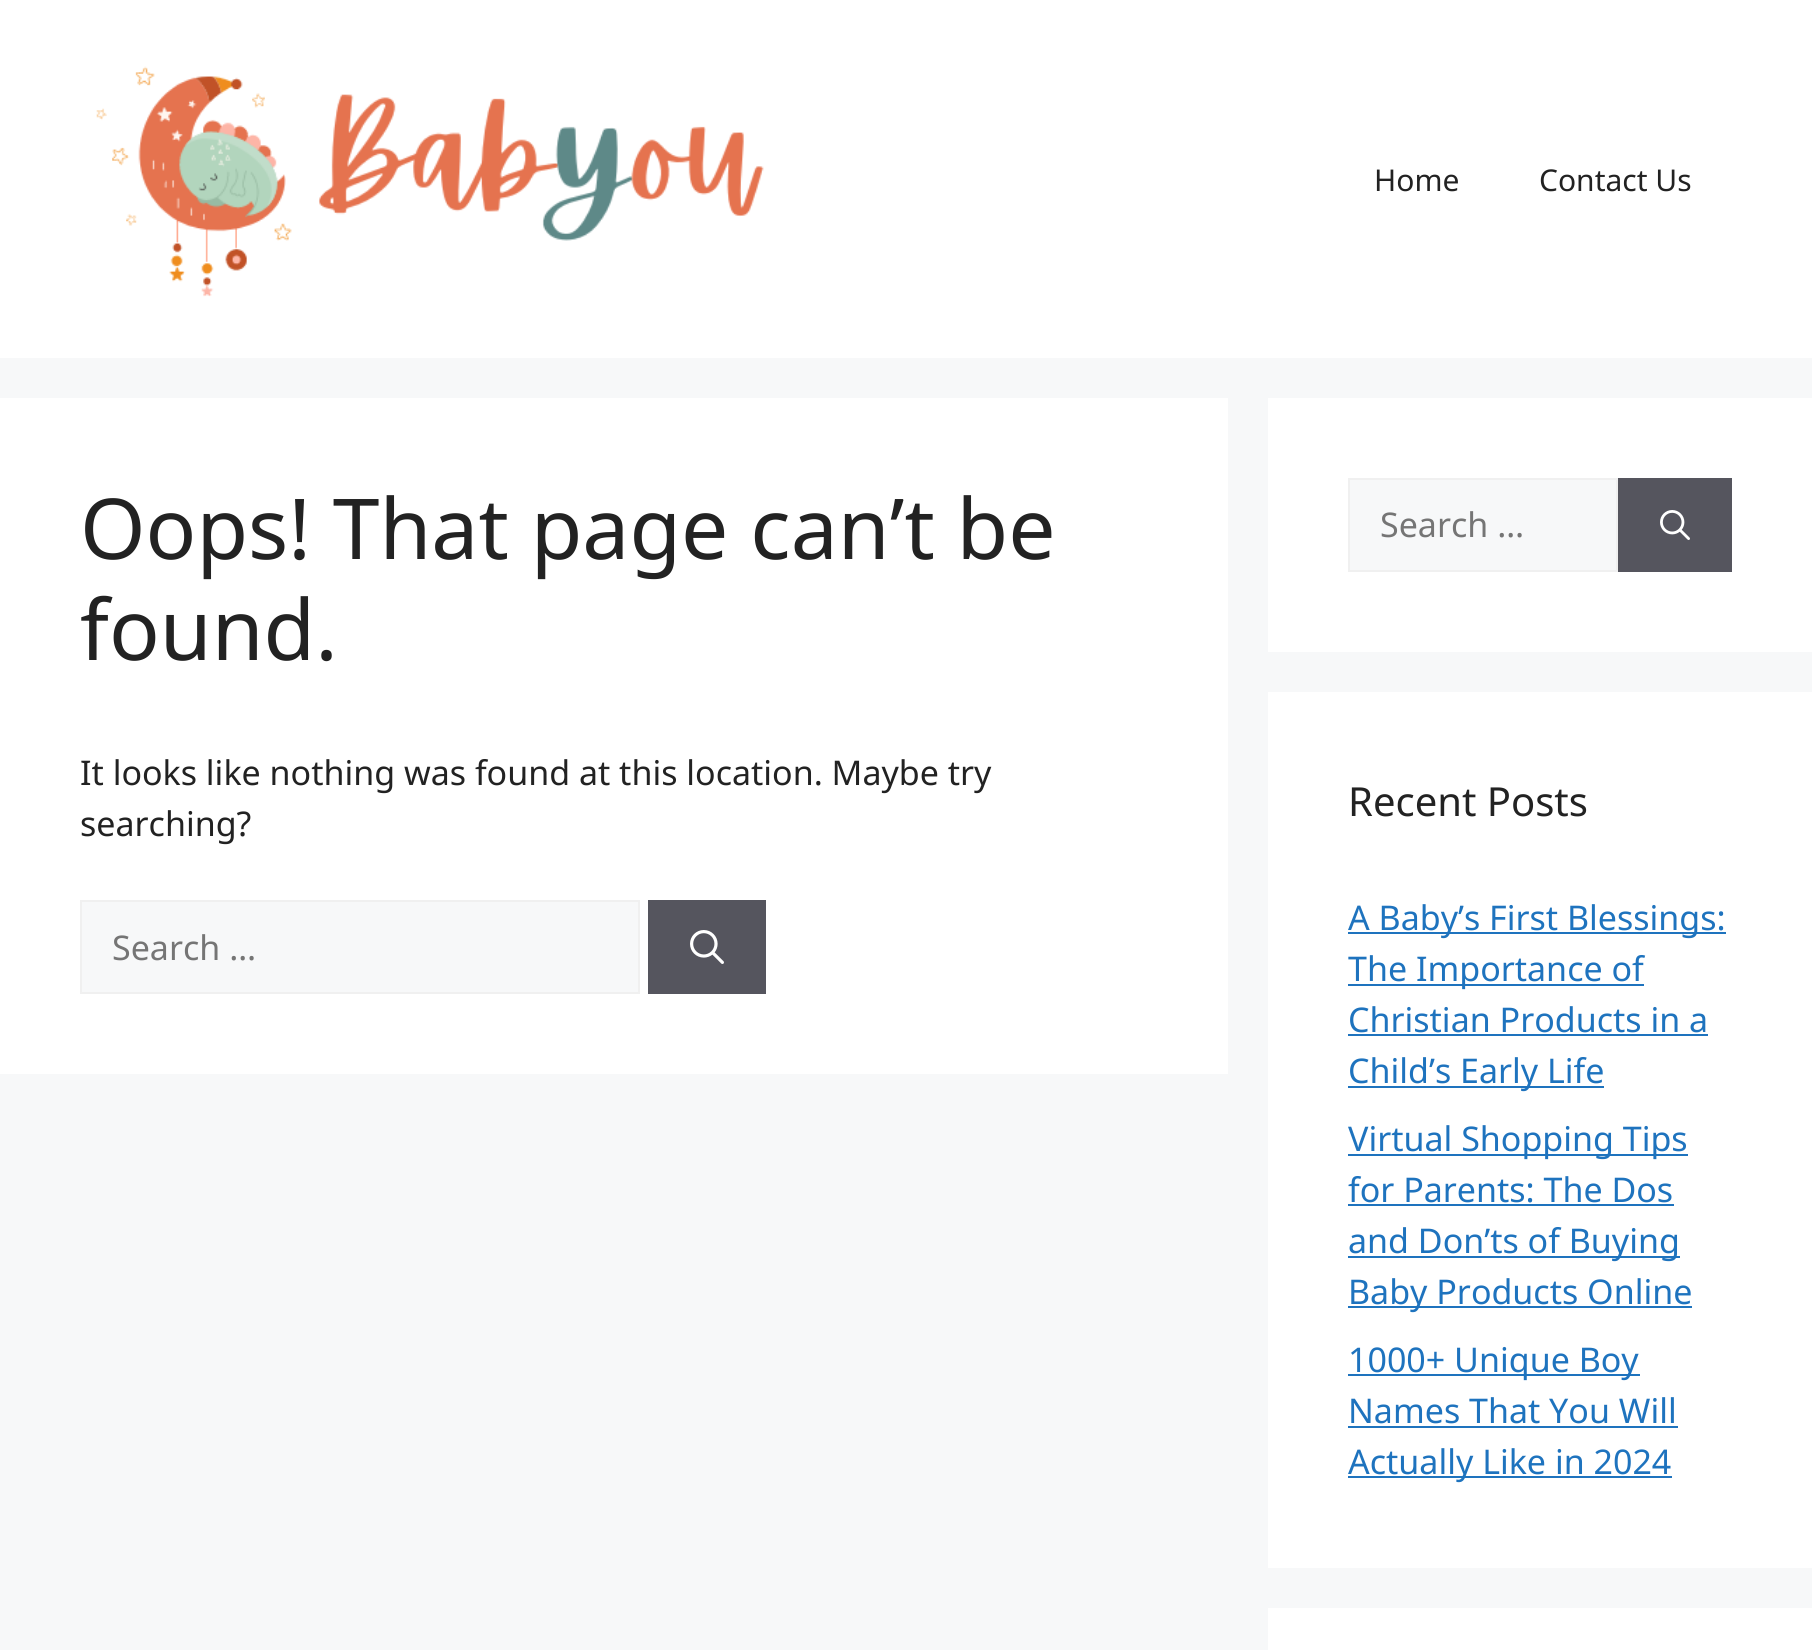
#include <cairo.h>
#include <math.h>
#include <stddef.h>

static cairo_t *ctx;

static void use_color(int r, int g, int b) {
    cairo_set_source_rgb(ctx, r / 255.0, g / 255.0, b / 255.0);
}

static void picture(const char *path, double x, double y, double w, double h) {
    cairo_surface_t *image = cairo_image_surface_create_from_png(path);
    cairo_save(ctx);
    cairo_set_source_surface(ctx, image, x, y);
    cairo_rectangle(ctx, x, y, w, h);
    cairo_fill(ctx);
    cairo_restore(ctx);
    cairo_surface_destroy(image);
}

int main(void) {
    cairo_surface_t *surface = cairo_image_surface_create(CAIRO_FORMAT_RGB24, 1812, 1650);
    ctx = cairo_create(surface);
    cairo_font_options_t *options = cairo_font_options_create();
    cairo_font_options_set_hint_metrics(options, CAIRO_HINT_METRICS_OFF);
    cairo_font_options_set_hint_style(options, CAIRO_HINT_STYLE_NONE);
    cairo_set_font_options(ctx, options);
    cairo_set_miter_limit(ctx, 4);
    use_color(247, 248, 249);
    cairo_paint(ctx);
    use_color(255, 255, 255);
    cairo_rectangle(ctx, 0, 0, 1812, 358);
    cairo_fill(ctx);
    picture("img1.png", 96, 66, 668, 231);
    cairo_select_font_face(ctx, "Noto Sans", CAIRO_FONT_SLANT_NORMAL, CAIRO_FONT_WEIGHT_NORMAL);
    cairo_set_font_size(ctx, 30);
    use_color(34, 34, 34);
    cairo_move_to(ctx, 1374, 191);
    cairo_show_text(ctx, "Home");
    cairo_move_to(ctx, 1539, 191);
    cairo_show_text(ctx, "Contact Us");
    use_color(255, 255, 255);
    cairo_rectangle(ctx, 0, 398, 1228, 676);
    cairo_fill(ctx);
    cairo_set_font_size(ctx, 84);
    use_color(34, 34, 34);
    cairo_move_to(ctx, 80, 559);
    cairo_show_text(ctx, "Oops! That page can’t be");
    cairo_move_to(ctx, 80, 660);
    cairo_show_text(ctx, "found.");
    cairo_set_font_size(ctx, 34);
    cairo_move_to(ctx, 80, 785);
    cairo_show_text(ctx, "It looks like nothing was found at this location. Maybe try");
    cairo_move_to(ctx, 80, 836);
    cairo_show_text(ctx, "searching?");
    use_color(247, 248, 249);
    cairo_rectangle(ctx, 81, 901, 558, 92);
    cairo_fill_preserve(ctx);
    use_color(240, 240, 240);
    cairo_stroke(ctx);
    use_color(117, 117, 117);
    cairo_move_to(ctx, 112, 960);
    cairo_show_text(ctx, "Search …");
    use_color(85, 85, 94);
    cairo_rectangle(ctx, 648, 900, 118, 94);
    cairo_fill(ctx);
    picture("img2.png", 690, 930, 34, 34);
    use_color(255, 255, 255);
    cairo_rectangle(ctx, 1268, 398, 544, 254);
    cairo_fill(ctx);
    use_color(247, 248, 249);
    cairo_rectangle(ctx, 1349, 479, 268, 92);
    cairo_fill_preserve(ctx);
    use_color(240, 240, 240);
    cairo_stroke(ctx);
    use_color(117, 117, 117);
    cairo_move_to(ctx, 1380, 537);
    cairo_show_text(ctx, "Search …");
    use_color(85, 85, 94);
    cairo_rectangle(ctx, 1618, 478, 114, 94);
    cairo_fill(ctx);
    picture("img3.png", 1660, 510, 30, 30);
    use_color(255, 255, 255);
    cairo_rectangle(ctx, 1268, 692, 544, 876);
    cairo_fill(ctx);
    cairo_set_font_size(ctx, 40);
    use_color(34, 34, 34);
    cairo_move_to(ctx, 1348, 816);
    cairo_show_text(ctx, "Recent Posts");
    use_color(30, 115, 190);
    cairo_rectangle(ctx, 1348, 932, 378, 2);
    cairo_fill(ctx);
    cairo_set_font_size(ctx, 34);
    cairo_move_to(ctx, 1348, 930);
    cairo_show_text(ctx, "A Baby’s First Blessings:");
    cairo_rectangle(ctx, 1348, 984, 296, 2);
    cairo_fill(ctx);
    cairo_move_to(ctx, 1348, 981);
    cairo_show_text(ctx, "The Importance of");
    cairo_move_to(ctx, 1348, 1032);
    cairo_show_text(ctx, "Christian Products in a");
    cairo_rectangle(ctx, 1348, 1034, 360, 2);
    cairo_fill(ctx);
    cairo_rectangle(ctx, 1348, 1086, 256, 2);
    cairo_fill(ctx);
    cairo_move_to(ctx, 1348, 1083);
    cairo_show_text(ctx, "Child’s Early Life");
    cairo_rectangle(ctx, 1348, 1154, 340, 2);
    cairo_fill(ctx);
    cairo_move_to(ctx, 1348, 1151);
    cairo_show_text(ctx, "Virtual Shopping Tips");
    cairo_move_to(ctx, 1348, 1202);
    cairo_show_text(ctx, "for Parents: The Dos");
    cairo_rectangle(ctx, 1348, 1204, 326, 2);
    cairo_fill(ctx);
    cairo_rectangle(ctx, 1348, 1256, 332, 2);
    cairo_fill(ctx);
    cairo_move_to(ctx, 1348, 1253);
    cairo_show_text(ctx, "and Don’ts of Buying");
    cairo_rectangle(ctx, 1348, 1306, 344, 2);
    cairo_fill(ctx);
    cairo_move_to(ctx, 1348, 1304);
    cairo_show_text(ctx, "Baby Products Online");
    cairo_rectangle(ctx, 1348, 1374, 292, 2);
    cairo_fill(ctx);
    cairo_move_to(ctx, 1348, 1372);
    cairo_show_text(ctx, "1000+ Unique Boy");
    cairo_move_to(ctx, 1348, 1423);
    cairo_show_text(ctx, "Names That You Will");
    cairo_rectangle(ctx, 1348, 1426, 330, 2);
    cairo_fill(ctx);
    cairo_rectangle(ctx, 1348, 1476, 324, 2);
    cairo_fill(ctx);
    cairo_move_to(ctx, 1348, 1474);
    cairo_show_text(ctx, "Actually Like in 2024");
    use_color(255, 255, 255);
    cairo_rectangle(ctx, 1268, 1608, 544, 42);
    cairo_fill(ctx);
    cairo_surface_write_to_png(surface, "result.png");
    cairo_font_options_destroy(options);
    cairo_destroy(ctx);
    cairo_surface_destroy(surface);
    return 0;
}
